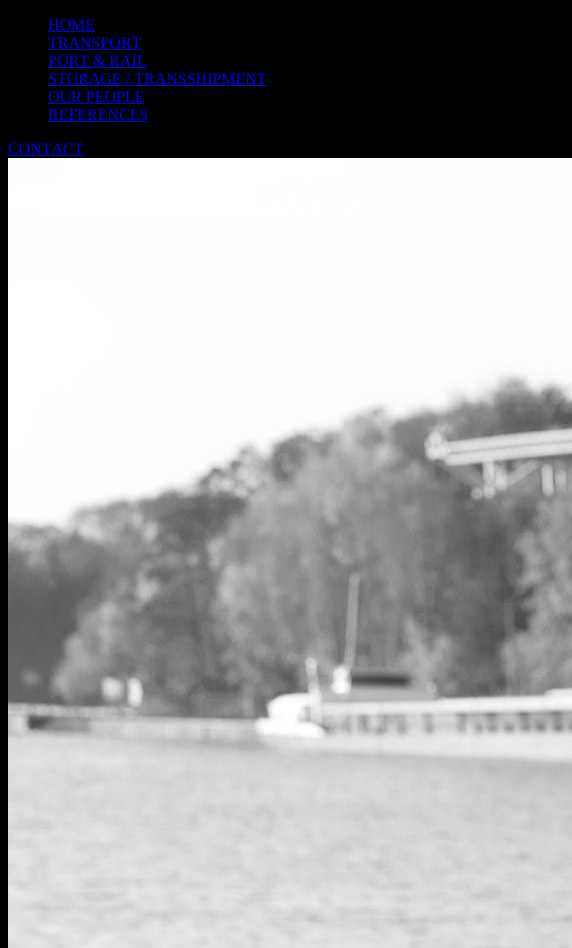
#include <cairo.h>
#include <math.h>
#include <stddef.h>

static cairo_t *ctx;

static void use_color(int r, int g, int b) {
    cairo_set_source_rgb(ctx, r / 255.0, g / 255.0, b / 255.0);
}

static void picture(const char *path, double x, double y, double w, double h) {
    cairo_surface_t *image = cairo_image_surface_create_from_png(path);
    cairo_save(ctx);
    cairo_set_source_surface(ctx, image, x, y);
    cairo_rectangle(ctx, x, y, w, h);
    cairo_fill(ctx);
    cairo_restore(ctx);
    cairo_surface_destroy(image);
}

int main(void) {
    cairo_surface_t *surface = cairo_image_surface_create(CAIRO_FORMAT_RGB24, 572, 948);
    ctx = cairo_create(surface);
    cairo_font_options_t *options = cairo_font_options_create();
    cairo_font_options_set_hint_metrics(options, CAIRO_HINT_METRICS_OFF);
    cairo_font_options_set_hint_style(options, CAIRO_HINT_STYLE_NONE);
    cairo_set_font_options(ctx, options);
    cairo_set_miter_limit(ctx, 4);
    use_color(0, 0, 0);
    cairo_paint(ctx);
    cairo_select_font_face(ctx, "Liberation Serif", CAIRO_FONT_SLANT_NORMAL, CAIRO_FONT_WEIGHT_NORMAL);
    cairo_set_font_size(ctx, 16);
    use_color(0, 0, 238);
    cairo_move_to(ctx, 48, 30);
    cairo_show_text(ctx, "HOME");
    cairo_rectangle(ctx, 48, 31, 47, 1);
    cairo_fill(ctx);
    cairo_move_to(ctx, 48, 48);
    cairo_show_text(ctx, "TRANSPORT");
    cairo_rectangle(ctx, 48, 49, 93, 1);
    cairo_fill(ctx);
    cairo_move_to(ctx, 48, 66);
    cairo_show_text(ctx, "PORT & RAIL");
    cairo_rectangle(ctx, 48, 67, 99, 1);
    cairo_fill(ctx);
    cairo_move_to(ctx, 48, 84);
    cairo_show_text(ctx, "STORAGE / TRANSSHIPMENT");
    cairo_rectangle(ctx, 48, 85, 219, 1);
    cairo_fill(ctx);
    cairo_move_to(ctx, 48, 102);
    cairo_show_text(ctx, "OUR PEOPLE");
    cairo_rectangle(ctx, 48, 103, 96, 1);
    cairo_fill(ctx);
    cairo_move_to(ctx, 48, 120);
    cairo_show_text(ctx, "REFERENCES");
    cairo_rectangle(ctx, 48, 121, 100, 1);
    cairo_fill(ctx);
    cairo_move_to(ctx, 8, 154);
    cairo_show_text(ctx, "CONTACT");
    cairo_rectangle(ctx, 8, 155, 76, 1);
    cairo_fill(ctx);
    picture("img1.png", 8, 158, 564, 790);
    cairo_surface_write_to_png(surface, "result.png");
    cairo_font_options_destroy(options);
    cairo_destroy(ctx);
    cairo_surface_destroy(surface);
    return 0;
}
